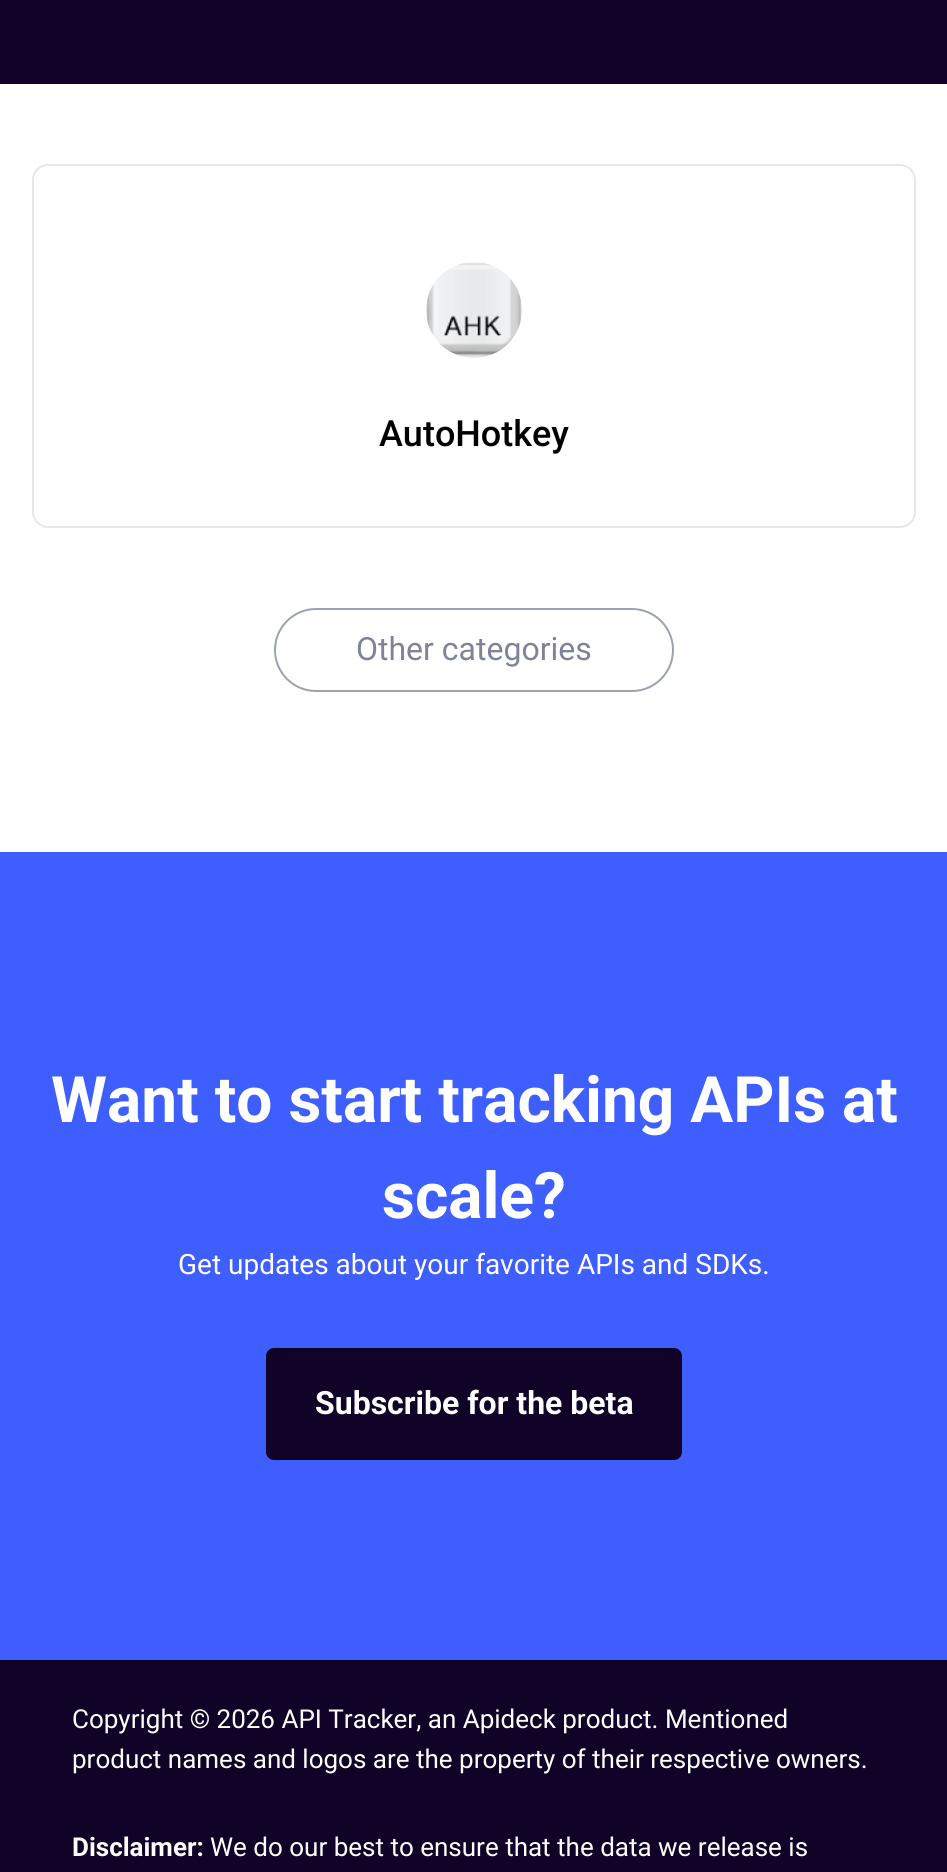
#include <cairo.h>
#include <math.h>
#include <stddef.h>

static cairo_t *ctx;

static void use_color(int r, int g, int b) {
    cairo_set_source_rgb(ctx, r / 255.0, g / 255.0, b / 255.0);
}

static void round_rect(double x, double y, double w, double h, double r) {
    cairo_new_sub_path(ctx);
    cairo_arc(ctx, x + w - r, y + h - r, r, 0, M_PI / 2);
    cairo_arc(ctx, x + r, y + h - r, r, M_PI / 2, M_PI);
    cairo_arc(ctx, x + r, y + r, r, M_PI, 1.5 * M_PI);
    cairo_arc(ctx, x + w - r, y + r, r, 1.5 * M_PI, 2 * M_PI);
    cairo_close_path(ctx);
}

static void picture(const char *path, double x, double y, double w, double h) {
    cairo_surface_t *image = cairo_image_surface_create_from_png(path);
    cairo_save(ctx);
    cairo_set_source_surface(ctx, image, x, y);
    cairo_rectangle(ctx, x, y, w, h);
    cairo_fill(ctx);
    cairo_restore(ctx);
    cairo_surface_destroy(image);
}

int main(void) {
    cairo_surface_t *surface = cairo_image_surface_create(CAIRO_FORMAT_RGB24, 947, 1872);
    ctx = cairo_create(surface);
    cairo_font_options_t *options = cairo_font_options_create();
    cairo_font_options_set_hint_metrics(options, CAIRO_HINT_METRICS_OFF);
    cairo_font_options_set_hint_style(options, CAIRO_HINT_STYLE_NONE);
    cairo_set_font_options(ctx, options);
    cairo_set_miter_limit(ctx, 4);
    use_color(255, 255, 255);
    cairo_paint(ctx);
    use_color(17, 3, 40);
    cairo_rectangle(ctx, 0, 0, 947, 84);
    cairo_fill(ctx);
    round_rect(33, 165, 882, 362, 15);
    use_color(229, 231, 235);
    cairo_stroke(ctx);
    picture("img1.png", 426, 262, 96, 96);
    cairo_select_font_face(ctx, "Roboto Medium", CAIRO_FONT_SLANT_NORMAL, CAIRO_FONT_WEIGHT_NORMAL);
    cairo_set_font_size(ctx, 36);
    use_color(0, 0, 0);
    cairo_move_to(ctx, 379, 446);
    cairo_show_text(ctx, "AutoHotkey");
    round_rect(275, 609, 398, 82, 41);
    use_color(156, 163, 175);
    cairo_stroke(ctx);
    cairo_select_font_face(ctx, "Roboto", CAIRO_FONT_SLANT_NORMAL, CAIRO_FONT_WEIGHT_NORMAL);
    cairo_set_font_size(ctx, 32);
    use_color(126, 131, 153);
    cairo_move_to(ctx, 356, 660);
    cairo_show_text(ctx, "Other categories");
    use_color(62, 94, 253);
    cairo_rectangle(ctx, 0, 852, 947, 808);
    cairo_fill(ctx);
    cairo_select_font_face(ctx, "Roboto", CAIRO_FONT_SLANT_NORMAL, CAIRO_FONT_WEIGHT_BOLD);
    cairo_set_font_size(ctx, 64);
    use_color(255, 255, 255);
    cairo_move_to(ctx, 51, 1122);
    cairo_show_text(ctx, "Want to start tracking APIs at");
    cairo_move_to(ctx, 382, 1218);
    cairo_show_text(ctx, "scale?");
    cairo_select_font_face(ctx, "Roboto", CAIRO_FONT_SLANT_NORMAL, CAIRO_FONT_WEIGHT_NORMAL);
    cairo_set_font_size(ctx, 28);
    cairo_move_to(ctx, 178, 1274);
    cairo_show_text(ctx, "Get updates about your favorite APIs and SDKs.");
    use_color(17, 3, 40);
    round_rect(266, 1348, 416, 112, 8);
    cairo_fill(ctx);
    cairo_select_font_face(ctx, "Roboto", CAIRO_FONT_SLANT_NORMAL, CAIRO_FONT_WEIGHT_BOLD);
    cairo_set_font_size(ctx, 32);
    use_color(255, 255, 255);
    cairo_move_to(ctx, 315, 1414);
    cairo_show_text(ctx, "Subscribe for the beta");
    use_color(17, 3, 40);
    cairo_rectangle(ctx, 0, 1660, 947, 212);
    cairo_fill(ctx);
    cairo_select_font_face(ctx, "Roboto", CAIRO_FONT_SLANT_NORMAL, CAIRO_FONT_WEIGHT_NORMAL);
    cairo_set_font_size(ctx, 26);
    use_color(255, 255, 255);
    cairo_move_to(ctx, 72, 1728);
    cairo_show_text(ctx, "Copyright © 2026 API Tracker, an Apideck product. Mentioned");
    cairo_move_to(ctx, 72, 1768);
    cairo_show_text(ctx, "product names and logos are the property of their respective owners.");
    cairo_select_font_face(ctx, "Roboto", CAIRO_FONT_SLANT_NORMAL, CAIRO_FONT_WEIGHT_BOLD);
    cairo_move_to(ctx, 72, 1856);
    cairo_show_text(ctx, "Disclaimer:");
    cairo_select_font_face(ctx, "Roboto", CAIRO_FONT_SLANT_NORMAL, CAIRO_FONT_WEIGHT_NORMAL);
    cairo_move_to(ctx, 210, 1856);
    cairo_show_text(ctx, "We do our best to ensure that the data we release is");
    cairo_surface_write_to_png(surface, "result.png");
    cairo_font_options_destroy(options);
    cairo_destroy(ctx);
    cairo_surface_destroy(surface);
    return 0;
}
